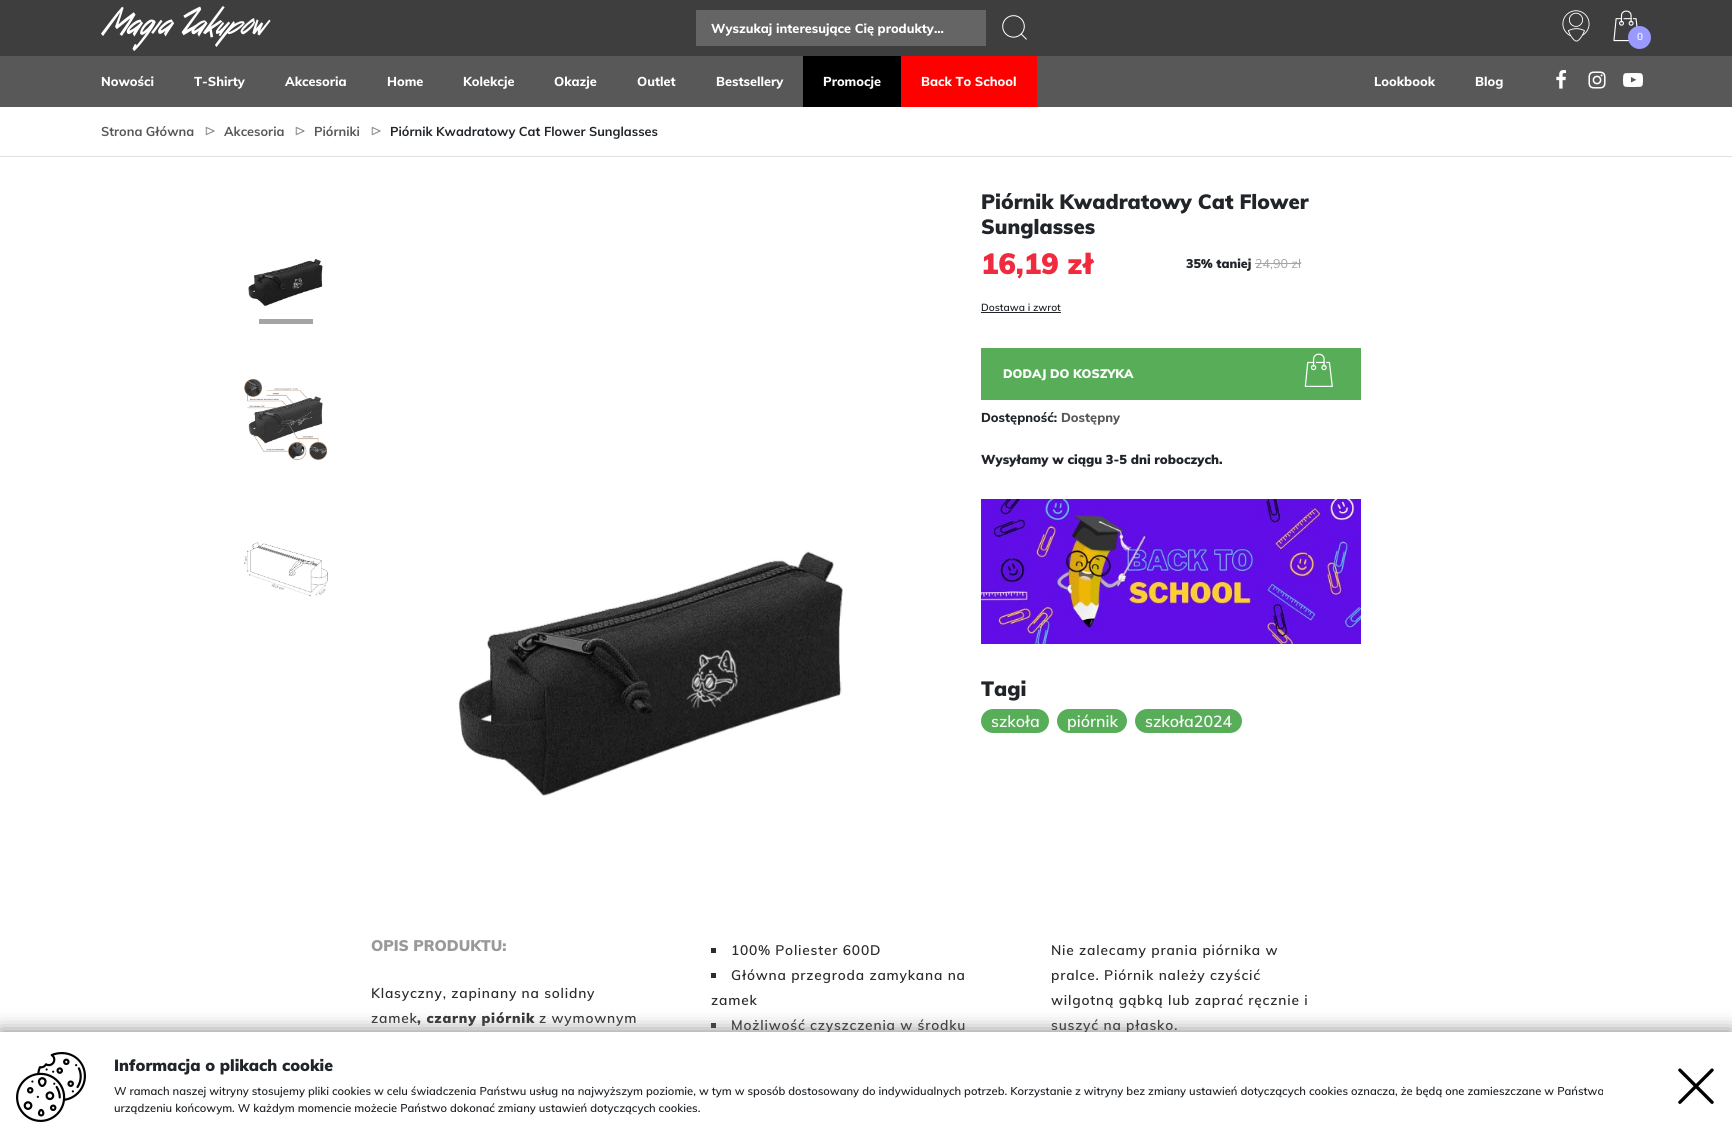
#include <cairo.h>
#include <math.h>
#include <stddef.h>

static cairo_t *ctx;

static void use_color(int r, int g, int b) {
    cairo_set_source_rgb(ctx, r / 255.0, g / 255.0, b / 255.0);
}

static void spaced_text(double x, double y, const char *s, double letter, double word) {
    cairo_move_to(ctx, x, y);
    while (*s) {
        char ch[5] = {0};
        int n = 0;
        do ch[n++] = *s++; while ((*s & 0xC0) == 0x80);
        cairo_show_text(ctx, ch);
        cairo_rel_move_to(ctx, letter + word * (*ch == ' '), 0);
    }
}

static void round_rect(double x, double y, double w, double h, double r) {
    cairo_new_sub_path(ctx);
    cairo_arc(ctx, x + w - r, y + h - r, r, 0, M_PI / 2);
    cairo_arc(ctx, x + r, y + h - r, r, M_PI / 2, M_PI);
    cairo_arc(ctx, x + r, y + r, r, M_PI, 1.5 * M_PI);
    cairo_arc(ctx, x + w - r, y + r, r, 1.5 * M_PI, 2 * M_PI);
    cairo_close_path(ctx);
}

static void shadow(double x, double y, double w, double h, double r, double blur, double alpha) {
    cairo_push_group_with_content(ctx, CAIRO_CONTENT_ALPHA);
    cairo_set_operator(ctx, CAIRO_OPERATOR_SOURCE);
    for (int i = 15; i >= -15 && fmin(w, h) + blur * i / 3 > 0; i -= 2) {
        double e = blur * i / 6;
        cairo_set_source_rgba(ctx, 0, 0, 0, alpha * erfc((i - 1) / 8.5) / 2);
        round_rect(x - e, y - e, w + 2 * e, h + 2 * e, fmax(0, fmin(r + e + blur * .6, fmin(w, h) / 2 + e)));
        cairo_fill(ctx);
    }
    cairo_pattern_t *soft = cairo_pop_group(ctx);
    cairo_mask(ctx, soft);
    cairo_pattern_destroy(soft);
}

static void picture(const char *path, double x, double y, double w, double h) {
    cairo_surface_t *image = cairo_image_surface_create_from_png(path);
    cairo_save(ctx);
    cairo_set_source_surface(ctx, image, x, y);
    cairo_rectangle(ctx, x, y, w, h);
    cairo_fill(ctx);
    cairo_restore(ctx);
    cairo_surface_destroy(image);
}

int main(void) {
    cairo_surface_t *surface = cairo_image_surface_create(CAIRO_FORMAT_RGB24, 1732, 1141);
    ctx = cairo_create(surface);
    cairo_font_options_t *options = cairo_font_options_create();
    cairo_font_options_set_hint_metrics(options, CAIRO_HINT_METRICS_OFF);
    cairo_font_options_set_hint_style(options, CAIRO_HINT_STYLE_NONE);
    cairo_set_font_options(ctx, options);
    cairo_set_miter_limit(ctx, 4);
    cairo_pattern_t *gradient;
    use_color(255, 255, 255);
    cairo_paint(ctx);
    use_color(62, 62, 62);
    cairo_rectangle(ctx, 0, 0, 1732, 56);
    cairo_fill(ctx);
    picture("img1.png", 101, 6, 170, 45);
    use_color(101, 101, 101);
    cairo_rectangle(ctx, 696, 10, 290, 36);
    cairo_fill(ctx);
    cairo_select_font_face(ctx, "Muli ExtraBold", CAIRO_FONT_SLANT_NORMAL, CAIRO_FONT_WEIGHT_NORMAL);
    cairo_set_font_size(ctx, 12.8);
    use_color(255, 255, 255);
    cairo_move_to(ctx, 711, 33);
    cairo_show_text(ctx, "Wyszukaj interesujące Cię produkty...");
    picture("img2.png", 1002, 15, 25, 25);
    picture("img3.png", 1562, 10, 28, 32);
    picture("img4.png", 1613, 10, 25, 32);
    use_color(153, 153, 255);
    cairo_arc(ctx, 1639.5, 37.5, 11.5, 0, 2 * M_PI);
    cairo_fill(ctx);
    cairo_select_font_face(ctx, "Muli SemiBold", CAIRO_FONT_SLANT_NORMAL, CAIRO_FONT_WEIGHT_NORMAL);
    cairo_set_font_size(ctx, 10);
    use_color(255, 255, 255);
    cairo_move_to(ctx, 1637, 40);
    cairo_show_text(ctx, "0");
    use_color(88, 88, 88);
    cairo_rectangle(ctx, 0, 56, 1732, 51);
    cairo_fill(ctx);
    cairo_select_font_face(ctx, "Muli ExtraBold", CAIRO_FONT_SLANT_NORMAL, CAIRO_FONT_WEIGHT_NORMAL);
    cairo_set_font_size(ctx, 12.8);
    use_color(255, 255, 255);
    cairo_move_to(ctx, 101, 86);
    cairo_show_text(ctx, "Nowości");
    cairo_move_to(ctx, 194, 86);
    cairo_show_text(ctx, "T-Shirty");
    cairo_move_to(ctx, 285, 86);
    cairo_show_text(ctx, "Akcesoria");
    cairo_move_to(ctx, 387, 86);
    cairo_show_text(ctx, "Home");
    cairo_move_to(ctx, 463, 86);
    cairo_show_text(ctx, "Kolekcje");
    cairo_move_to(ctx, 554, 86);
    cairo_show_text(ctx, "Okazje");
    cairo_move_to(ctx, 637, 86);
    cairo_show_text(ctx, "Outlet");
    cairo_move_to(ctx, 716, 86);
    cairo_show_text(ctx, "Bestsellery");
    use_color(0, 0, 0);
    cairo_rectangle(ctx, 803, 56, 98, 51);
    cairo_fill(ctx);
    use_color(255, 255, 255);
    cairo_move_to(ctx, 823, 86);
    cairo_show_text(ctx, "Promocje");
    use_color(255, 0, 0);
    cairo_rectangle(ctx, 901, 56, 136, 51);
    cairo_fill(ctx);
    use_color(255, 255, 255);
    cairo_move_to(ctx, 921, 86);
    cairo_show_text(ctx, "Back To School");
    cairo_move_to(ctx, 1374, 86);
    cairo_show_text(ctx, "Lookbook");
    cairo_move_to(ctx, 1475, 86);
    cairo_show_text(ctx, "Blog");
    picture("img5.png", 1556, 70, 10, 19);
    picture("img6.png", 1588, 71, 18, 18);
    picture("img7.png", 1623, 73, 20, 14);
    use_color(222, 226, 230);
    cairo_rectangle(ctx, 0, 156, 1732, 1);
    cairo_fill(ctx);
    cairo_select_font_face(ctx, "Muli", CAIRO_FONT_SLANT_NORMAL, CAIRO_FONT_WEIGHT_BOLD);
    use_color(88, 88, 88);
    cairo_move_to(ctx, 101, 136);
    cairo_show_text(ctx, "Strona Główna");
    picture("img8.png", 205, 126, 10, 10);
    cairo_move_to(ctx, 224, 136);
    cairo_show_text(ctx, "Akcesoria");
    picture("img8.png", 295, 126, 10, 10);
    cairo_move_to(ctx, 314, 136);
    cairo_show_text(ctx, "Piórniki");
    picture("img8.png", 371, 126, 10, 10);
    use_color(33, 37, 41);
    cairo_move_to(ctx, 390, 136);
    cairo_show_text(ctx, "Piórnik Kwadratowy Cat Flower Sunglasses");
    picture("img9.png", 248, 259, 75, 47);
    use_color(164, 164, 164);
    cairo_rectangle(ctx, 259, 319, 54, 5);
    cairo_fill(ctx);
    picture("img10.png", 244, 378, 84, 83);
    picture("img11.png", 243, 542, 85, 55);
    picture("img12.png", 458, 551, 385, 245);
    cairo_select_font_face(ctx, "Muli Black", CAIRO_FONT_SLANT_NORMAL, CAIRO_FONT_WEIGHT_NORMAL);
    cairo_set_font_size(ctx, 20.5);
    use_color(33, 37, 41);
    cairo_move_to(ctx, 981, 209);
    cairo_show_text(ctx, "Piórnik Kwadratowy Cat Flower");
    cairo_move_to(ctx, 981, 234);
    cairo_show_text(ctx, "Sunglasses");
    cairo_set_font_size(ctx, 29);
    use_color(241, 43, 62);
    cairo_move_to(ctx, 981, 274);
    cairo_show_text(ctx, "16,19 zł");
    cairo_set_font_size(ctx, 12.5);
    use_color(33, 37, 41);
    cairo_move_to(ctx, 1186, 268);
    cairo_show_text(ctx, "35% taniej");
    cairo_select_font_face(ctx, "Muli", CAIRO_FONT_SLANT_NORMAL, CAIRO_FONT_WEIGHT_NORMAL);
    use_color(164, 164, 164);
    cairo_move_to(ctx, 1255, 268);
    cairo_show_text(ctx, "24,90 zł");
    cairo_rectangle(ctx, 1255, 263, 46, 1);
    cairo_fill(ctx);
    cairo_select_font_face(ctx, "Muli SemiBold", CAIRO_FONT_SLANT_NORMAL, CAIRO_FONT_WEIGHT_NORMAL);
    cairo_set_font_size(ctx, 10.25);
    use_color(33, 37, 41);
    cairo_move_to(ctx, 981, 311);
    cairo_show_text(ctx, "Dostawa i zwrot");
    cairo_rectangle(ctx, 981, 312, 80, 1);
    cairo_fill(ctx);
    use_color(88, 174, 88);
    cairo_rectangle(ctx, 981, 348, 380, 52);
    cairo_fill(ctx);
    cairo_select_font_face(ctx, "Muli Black", CAIRO_FONT_SLANT_NORMAL, CAIRO_FONT_WEIGHT_NORMAL);
    cairo_set_font_size(ctx, 12.25);
    use_color(255, 255, 255);
    cairo_move_to(ctx, 1003, 378);
    cairo_show_text(ctx, "DODAJ DO KOSZYKA");
    picture("img13.png", 1304, 353, 29, 34);
    cairo_select_font_face(ctx, "Muli ExtraBold", CAIRO_FONT_SLANT_NORMAL, CAIRO_FONT_WEIGHT_NORMAL);
    cairo_set_font_size(ctx, 12.8);
    use_color(33, 37, 41);
    cairo_move_to(ctx, 981, 422);
    cairo_show_text(ctx, "Dostępność:");
    use_color(88, 88, 88);
    cairo_move_to(ctx, 1061, 422);
    cairo_show_text(ctx, "Dostępny");
    cairo_select_font_face(ctx, "Muli Black", CAIRO_FONT_SLANT_NORMAL, CAIRO_FONT_WEIGHT_NORMAL);
    use_color(33, 37, 41);
    cairo_move_to(ctx, 981, 464);
    cairo_show_text(ctx, "Wysyłamy w ciągu 3-5 dni roboczych.");
    picture("img14.png", 981, 499, 380, 145);
    cairo_set_font_size(ctx, 20.5);
    cairo_move_to(ctx, 981, 696);
    cairo_show_text(ctx, "Tagi");
    use_color(88, 174, 88);
    round_rect(981, 709, 68, 24, 12);
    cairo_fill(ctx);
    cairo_select_font_face(ctx, "Muli SemiBold", CAIRO_FONT_SLANT_NORMAL, CAIRO_FONT_WEIGHT_NORMAL);
    cairo_set_font_size(ctx, 16);
    use_color(249, 249, 249);
    cairo_move_to(ctx, 991, 727);
    cairo_show_text(ctx, "szkoła");
    use_color(88, 174, 88);
    round_rect(1057, 709, 70, 24, 12);
    cairo_fill(ctx);
    use_color(249, 249, 249);
    cairo_move_to(ctx, 1067, 727);
    cairo_show_text(ctx, "piórnik");
    use_color(88, 174, 88);
    round_rect(1135, 709, 107, 24, 12);
    cairo_fill(ctx);
    use_color(249, 249, 249);
    cairo_move_to(ctx, 1145, 727);
    cairo_show_text(ctx, "szkoła2024");
    cairo_select_font_face(ctx, "Muli Black", CAIRO_FONT_SLANT_NORMAL, CAIRO_FONT_WEIGHT_NORMAL);
    cairo_set_font_size(ctx, 15.25);
    use_color(153, 153, 153);
    cairo_move_to(ctx, 371, 951);
    cairo_show_text(ctx, "OPIS PRODUKTU:");
    cairo_select_font_face(ctx, "Muli SemiBold", CAIRO_FONT_SLANT_NORMAL, CAIRO_FONT_WEIGHT_NORMAL);
    cairo_set_font_size(ctx, 13.75);
    use_color(45, 45, 45);
    spaced_text(371, 998, "Klasyczny, zapinany na solidny", 0.8, 0);
    spaced_text(371, 1023, "zamek", 0.8, 0);
    cairo_select_font_face(ctx, "Muli Black", CAIRO_FONT_SLANT_NORMAL, CAIRO_FONT_WEIGHT_NORMAL);
    spaced_text(417, 1023, ", czarny piórnik", 0.8, 0);
    cairo_select_font_face(ctx, "Muli SemiBold", CAIRO_FONT_SLANT_NORMAL, CAIRO_FONT_WEIGHT_NORMAL);
    spaced_text(539, 1023, "z wymownym", 0.8, 0);
    cairo_rectangle(ctx, 711, 948, 5, 5);
    cairo_fill(ctx);
    spaced_text(731, 955, "100% Poliester 600D", 0.8, 0);
    cairo_rectangle(ctx, 711, 973, 5, 5);
    cairo_fill(ctx);
    spaced_text(731, 980, "Główna przegroda zamykana na", 0.8, 0);
    spaced_text(711, 1005, "zamek", 0.8, 0);
    cairo_rectangle(ctx, 711, 1023, 5, 5);
    cairo_fill(ctx);
    spaced_text(731, 1030, "Możliwość czyszczenia w środku", 0.8, 0);
    spaced_text(1051, 955, "Nie zalecamy prania piórnika w", 0.8, 0);
    spaced_text(1051, 980, "pralce. Piórnik należy czyścić", 0.8, 0);
    spaced_text(1051, 1005, "wilgotną gąbką lub zaprać ręcznie i", 0.8, 0);
    spaced_text(1051, 1030, "suszyć na płasko.", 0.8, 0);
    gradient = cairo_pattern_create_linear(866, 1012, 866, 1102);
    cairo_pattern_add_color_stop_rgba(gradient, 0, 1, 1, 1, 0);
    cairo_pattern_add_color_stop_rgba(gradient, 1, 1, 1, 1, 1);
    cairo_set_source(ctx, gradient);
    cairo_pattern_destroy(gradient);
    cairo_rectangle(ctx, 371, 1014, 805, 18);
    cairo_fill(ctx);
    use_color(0, 0, 0);
    shadow(0, 1032, 1732, 109, 0, 10, 0.5);
    use_color(255, 255, 255);
    cairo_rectangle(ctx, 0, 1032, 1732, 109);
    cairo_fill(ctx);
    picture("img15.png", 16, 1052, 70, 70);
    cairo_select_font_face(ctx, "Muli Black", CAIRO_FONT_SLANT_NORMAL, CAIRO_FONT_WEIGHT_NORMAL);
    cairo_set_font_size(ctx, 16);
    use_color(33, 37, 41);
    cairo_move_to(ctx, 114, 1071);
    cairo_show_text(ctx, "Informacja o plikach cookie");
    cairo_select_font_face(ctx, "Muli SemiBold", CAIRO_FONT_SLANT_NORMAL, CAIRO_FONT_WEIGHT_NORMAL);
    cairo_set_font_size(ctx, 11.2);
    cairo_move_to(ctx, 114, 1095);
    cairo_show_text(ctx, "W ramach naszej witryny stosujemy pliki cookies w celu świadczenia Państwu usług na najwyższym poziomie, w tym w sposób dostosowany do indywidualnych potrzeb. Korzystanie z witryny bez zmiany ustawień dotyczących cookies oznacza, że będą one zamieszczane w Państwa");
    cairo_move_to(ctx, 114, 1112);
    cairo_show_text(ctx, "urządzeniu końcowym. W każdym momencie możecie Państwo dokonać zmiany ustawień dotyczących cookies.");
    picture("img16.png", 1678, 1068, 36, 36);
    cairo_surface_write_to_png(surface, "result.png");
    cairo_font_options_destroy(options);
    cairo_destroy(ctx);
    cairo_surface_destroy(surface);
    return 0;
}
